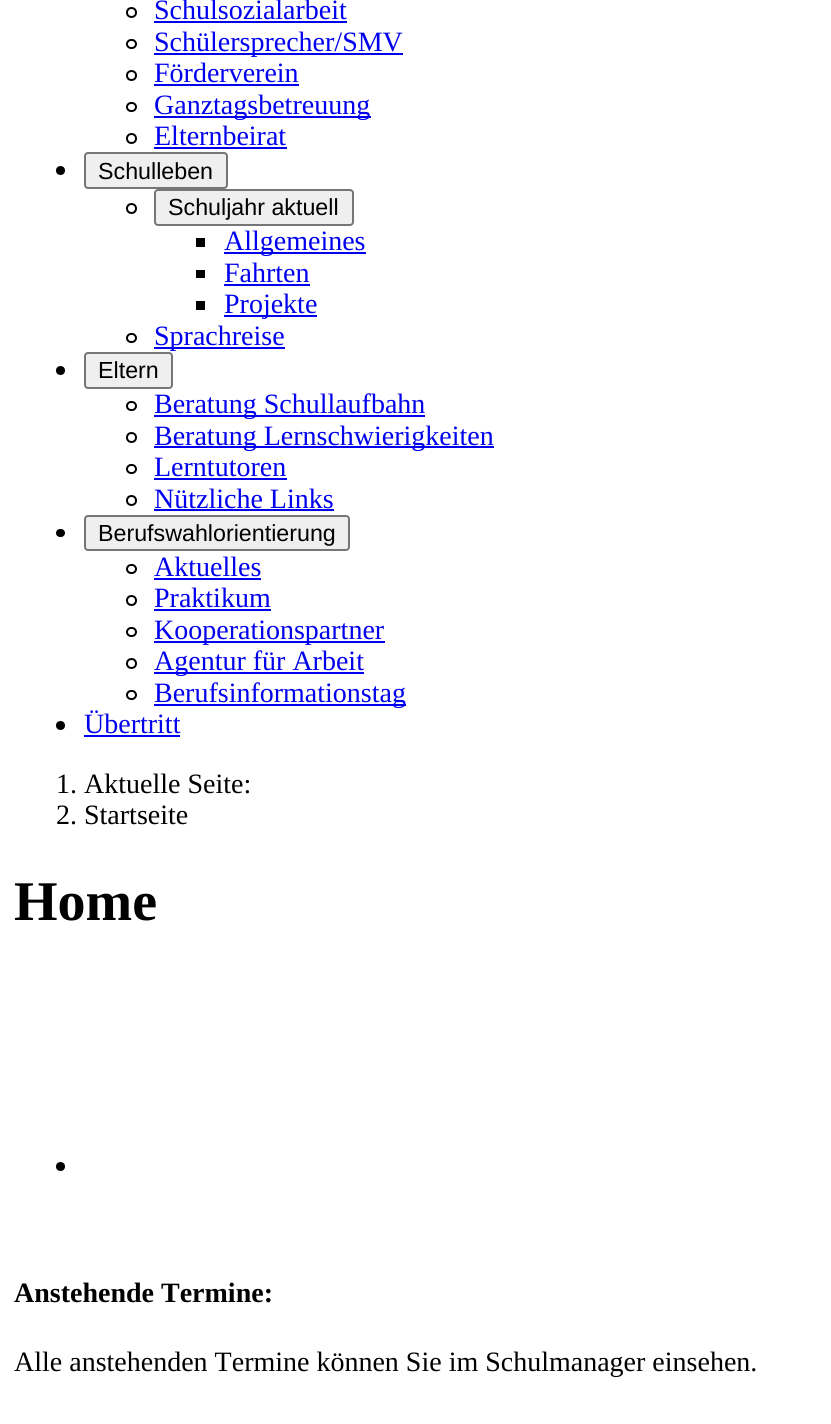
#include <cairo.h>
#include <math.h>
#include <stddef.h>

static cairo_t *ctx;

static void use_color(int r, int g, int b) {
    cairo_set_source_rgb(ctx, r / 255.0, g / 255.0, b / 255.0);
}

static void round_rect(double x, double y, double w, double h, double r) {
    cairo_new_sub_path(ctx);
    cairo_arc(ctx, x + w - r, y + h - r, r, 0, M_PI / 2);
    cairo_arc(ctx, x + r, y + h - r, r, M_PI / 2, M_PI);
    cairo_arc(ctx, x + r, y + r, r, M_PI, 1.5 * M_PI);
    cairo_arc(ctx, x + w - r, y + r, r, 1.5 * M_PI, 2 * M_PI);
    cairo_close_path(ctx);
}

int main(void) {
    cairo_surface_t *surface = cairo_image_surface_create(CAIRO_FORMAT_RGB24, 831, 1424);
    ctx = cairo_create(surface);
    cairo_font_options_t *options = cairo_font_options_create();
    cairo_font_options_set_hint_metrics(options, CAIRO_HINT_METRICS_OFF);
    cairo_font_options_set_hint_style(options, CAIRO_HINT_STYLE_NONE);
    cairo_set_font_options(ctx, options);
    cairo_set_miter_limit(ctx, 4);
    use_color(255, 255, 255);
    cairo_paint(ctx);
    cairo_arc(ctx, 131.5, 12.5, 4.5, 0, 2 * M_PI);
    use_color(0, 0, 0);
    cairo_stroke(ctx);
    cairo_select_font_face(ctx, "Liberation Serif", CAIRO_FONT_SLANT_NORMAL, CAIRO_FONT_WEIGHT_NORMAL);
    cairo_set_font_size(ctx, 28);
    use_color(0, 0, 238);
    cairo_move_to(ctx, 154, 19);
    cairo_show_text(ctx, "Schulsozialarbeit");
    cairo_rectangle(ctx, 154, 21, 193, 2);
    cairo_fill(ctx);
    round_rect(127, 40, 9, 8, 4);
    use_color(0, 0, 0);
    cairo_stroke(ctx);
    use_color(0, 0, 238);
    cairo_rectangle(ctx, 154, 53, 249, 2);
    cairo_fill(ctx);
    cairo_move_to(ctx, 154, 51);
    cairo_show_text(ctx, "Schülersprecher/SMV");
    cairo_new_path(ctx);
    cairo_arc(ctx, 131.5, 75.5, 4.5, 0, 2 * M_PI);
    use_color(0, 0, 0);
    cairo_stroke(ctx);
    use_color(0, 0, 238);
    cairo_move_to(ctx, 154, 82);
    cairo_show_text(ctx, "Förderverein");
    cairo_rectangle(ctx, 154, 84, 145, 2);
    cairo_fill(ctx);
    round_rect(127, 103, 9, 8, 4);
    use_color(0, 0, 0);
    cairo_stroke(ctx);
    use_color(0, 0, 238);
    cairo_rectangle(ctx, 154, 116, 217, 2);
    cairo_fill(ctx);
    cairo_move_to(ctx, 154, 114);
    cairo_show_text(ctx, "Ganztagsbetreuung");
    cairo_new_path(ctx);
    cairo_arc(ctx, 131.5, 138.5, 4.5, 0, 2 * M_PI);
    use_color(0, 0, 0);
    cairo_stroke(ctx);
    use_color(0, 0, 238);
    cairo_move_to(ctx, 154, 145);
    cairo_show_text(ctx, "Elternbeirat");
    cairo_rectangle(ctx, 154, 147, 133, 2);
    cairo_fill(ctx);
    use_color(0, 0, 0);
    cairo_arc(ctx, 60.5, 170.5, 4.5, 0, 2 * M_PI);
    cairo_fill(ctx);
    use_color(239, 239, 239);
    round_rect(85, 153, 142, 35, 3);
    cairo_fill_preserve(ctx);
    use_color(118, 118, 118);
    cairo_stroke(ctx);
    cairo_select_font_face(ctx, "Liberation Sans", CAIRO_FONT_SLANT_NORMAL, CAIRO_FONT_WEIGHT_NORMAL);
    cairo_set_font_size(ctx, 23.25);
    use_color(0, 0, 0);
    cairo_move_to(ctx, 98, 179);
    cairo_show_text(ctx, "Schulleben");
    cairo_new_path(ctx);
    cairo_arc(ctx, 131.5, 208.5, 4.5, 0, 2 * M_PI);
    cairo_stroke(ctx);
    use_color(239, 239, 239);
    round_rect(155, 190, 198, 35, 3);
    cairo_fill_preserve(ctx);
    use_color(118, 118, 118);
    cairo_stroke(ctx);
    use_color(0, 0, 0);
    cairo_move_to(ctx, 168, 215);
    cairo_show_text(ctx, "Schuljahr aktuell");
    cairo_rectangle(ctx, 196, 238, 9, 9);
    cairo_fill(ctx);
    use_color(0, 0, 238);
    cairo_rectangle(ctx, 224, 252, 142, 2);
    cairo_fill(ctx);
    cairo_select_font_face(ctx, "Liberation Serif", CAIRO_FONT_SLANT_NORMAL, CAIRO_FONT_WEIGHT_NORMAL);
    cairo_set_font_size(ctx, 28);
    cairo_move_to(ctx, 224, 250);
    cairo_show_text(ctx, "Allgemeines");
    use_color(0, 0, 0);
    cairo_rectangle(ctx, 196, 270, 9, 8);
    cairo_fill(ctx);
    use_color(0, 0, 238);
    cairo_move_to(ctx, 224, 282);
    cairo_show_text(ctx, "Fahrten");
    cairo_rectangle(ctx, 224, 284, 86, 2);
    cairo_fill(ctx);
    use_color(0, 0, 0);
    cairo_rectangle(ctx, 196, 301, 9, 9);
    cairo_fill(ctx);
    use_color(0, 0, 238);
    cairo_rectangle(ctx, 224, 315, 93, 2);
    cairo_fill(ctx);
    cairo_move_to(ctx, 224, 313);
    cairo_show_text(ctx, "Projekte");
    round_rect(127, 334, 9, 8, 4);
    use_color(0, 0, 0);
    cairo_stroke(ctx);
    use_color(0, 0, 238);
    cairo_rectangle(ctx, 154, 347, 131, 2);
    cairo_fill(ctx);
    cairo_move_to(ctx, 154, 345);
    cairo_show_text(ctx, "Sprachreise");
    use_color(0, 0, 0);
    cairo_new_path(ctx);
    cairo_arc(ctx, 60.5, 370.5, 4.5, 0, 2 * M_PI);
    cairo_fill(ctx);
    use_color(239, 239, 239);
    round_rect(85, 353, 87, 35, 3);
    cairo_fill_preserve(ctx);
    use_color(118, 118, 118);
    cairo_stroke(ctx);
    cairo_select_font_face(ctx, "Liberation Sans", CAIRO_FONT_SLANT_NORMAL, CAIRO_FONT_WEIGHT_NORMAL);
    cairo_set_font_size(ctx, 23.25);
    use_color(0, 0, 0);
    cairo_move_to(ctx, 98, 378);
    cairo_show_text(ctx, "Eltern");
    round_rect(127, 402, 9, 8, 4);
    cairo_stroke(ctx);
    use_color(0, 0, 238);
    cairo_rectangle(ctx, 154, 415, 271, 2);
    cairo_fill(ctx);
    cairo_select_font_face(ctx, "Liberation Serif", CAIRO_FONT_SLANT_NORMAL, CAIRO_FONT_WEIGHT_NORMAL);
    cairo_set_font_size(ctx, 28);
    cairo_move_to(ctx, 154, 413);
    cairo_show_text(ctx, "Beratung Schullaufbahn");
    cairo_new_path(ctx);
    cairo_arc(ctx, 131.5, 437.5, 4.5, 0, 2 * M_PI);
    use_color(0, 0, 0);
    cairo_stroke(ctx);
    use_color(0, 0, 238);
    cairo_rectangle(ctx, 154, 446, 340, 2);
    cairo_fill(ctx);
    cairo_move_to(ctx, 154, 445);
    cairo_show_text(ctx, "Beratung Lernschwierigkeiten");
    round_rect(127, 465, 9, 8, 4);
    use_color(0, 0, 0);
    cairo_stroke(ctx);
    use_color(0, 0, 238);
    cairo_move_to(ctx, 154, 476);
    cairo_show_text(ctx, "Lerntutoren");
    cairo_rectangle(ctx, 154, 478, 133, 2);
    cairo_fill(ctx);
    cairo_arc(ctx, 131.5, 500.5, 4.5, 0, 2 * M_PI);
    use_color(0, 0, 0);
    cairo_stroke(ctx);
    use_color(0, 0, 238);
    cairo_move_to(ctx, 154, 508);
    cairo_show_text(ctx, "Nützliche Links");
    cairo_rectangle(ctx, 154, 509, 180, 2);
    cairo_fill(ctx);
    use_color(0, 0, 0);
    round_rect(56, 529, 9, 8, 4);
    cairo_fill(ctx);
    use_color(239, 239, 239);
    round_rect(85, 516, 264, 34, 3);
    cairo_fill_preserve(ctx);
    use_color(118, 118, 118);
    cairo_stroke(ctx);
    cairo_select_font_face(ctx, "Liberation Sans", CAIRO_FONT_SLANT_NORMAL, CAIRO_FONT_WEIGHT_NORMAL);
    cairo_set_font_size(ctx, 23.25);
    use_color(0, 0, 0);
    cairo_move_to(ctx, 98, 541);
    cairo_show_text(ctx, "Berufswahlorientierung");
    round_rect(127, 565, 9, 8, 4);
    cairo_stroke(ctx);
    cairo_select_font_face(ctx, "Liberation Serif", CAIRO_FONT_SLANT_NORMAL, CAIRO_FONT_WEIGHT_NORMAL);
    cairo_set_font_size(ctx, 28);
    use_color(0, 0, 238);
    cairo_move_to(ctx, 154, 576);
    cairo_show_text(ctx, "Aktuelles");
    cairo_rectangle(ctx, 154, 578, 107, 2);
    cairo_fill(ctx);
    cairo_arc(ctx, 131.5, 600.5, 4.5, 0, 2 * M_PI);
    use_color(0, 0, 0);
    cairo_stroke(ctx);
    use_color(0, 0, 238);
    cairo_move_to(ctx, 154, 607);
    cairo_show_text(ctx, "Praktikum");
    cairo_rectangle(ctx, 154, 609, 117, 2);
    cairo_fill(ctx);
    round_rect(127, 628, 9, 8, 4);
    use_color(0, 0, 0);
    cairo_stroke(ctx);
    use_color(0, 0, 238);
    cairo_rectangle(ctx, 154, 641, 231, 2);
    cairo_fill(ctx);
    cairo_move_to(ctx, 154, 639);
    cairo_show_text(ctx, "Kooperationspartner");
    cairo_new_path(ctx);
    cairo_arc(ctx, 131.5, 663.5, 4.5, 0, 2 * M_PI);
    use_color(0, 0, 0);
    cairo_stroke(ctx);
    use_color(0, 0, 238);
    cairo_rectangle(ctx, 154, 672, 210, 2);
    cairo_fill(ctx);
    cairo_move_to(ctx, 154, 670);
    cairo_show_text(ctx, "Agentur für Arbeit");
    round_rect(127, 691, 9, 8, 4);
    use_color(0, 0, 0);
    cairo_stroke(ctx);
    use_color(0, 0, 238);
    cairo_rectangle(ctx, 154, 704, 252, 2);
    cairo_fill(ctx);
    cairo_move_to(ctx, 154, 702);
    cairo_show_text(ctx, "Berufsinformationstag");
    use_color(0, 0, 0);
    cairo_new_path(ctx);
    cairo_arc(ctx, 60.5, 725.5, 4.5, 0, 2 * M_PI);
    cairo_fill(ctx);
    use_color(0, 0, 238);
    cairo_move_to(ctx, 84, 733);
    cairo_show_text(ctx, "Übertritt");
    cairo_rectangle(ctx, 84, 735, 96, 2);
    cairo_fill(ctx);
    use_color(0, 0, 0);
    cairo_move_to(ctx, 56, 793);
    cairo_show_text(ctx, "1. Aktuelle Seite:");
    cairo_move_to(ctx, 56, 824);
    cairo_show_text(ctx, "2. Startseite");
    cairo_select_font_face(ctx, "Liberation Serif", CAIRO_FONT_SLANT_NORMAL, CAIRO_FONT_WEIGHT_BOLD);
    cairo_set_font_size(ctx, 56);
    cairo_move_to(ctx, 14, 920);
    cairo_show_text(ctx, "Home");
    cairo_new_path(ctx);
    cairo_arc(ctx, 60.5, 1166.5, 4.5, 0, 2 * M_PI);
    cairo_fill(ctx);
    cairo_set_font_size(ctx, 28);
    cairo_move_to(ctx, 14, 1302);
    cairo_show_text(ctx, "Anstehende Termine:");
    cairo_select_font_face(ctx, "Liberation Serif", CAIRO_FONT_SLANT_NORMAL, CAIRO_FONT_WEIGHT_NORMAL);
    cairo_move_to(ctx, 14, 1371);
    cairo_show_text(ctx, "Alle anstehenden Termine können Sie im Schulmanager einsehen.");
    cairo_surface_write_to_png(surface, "result.png");
    cairo_font_options_destroy(options);
    cairo_destroy(ctx);
    cairo_surface_destroy(surface);
    return 0;
}
